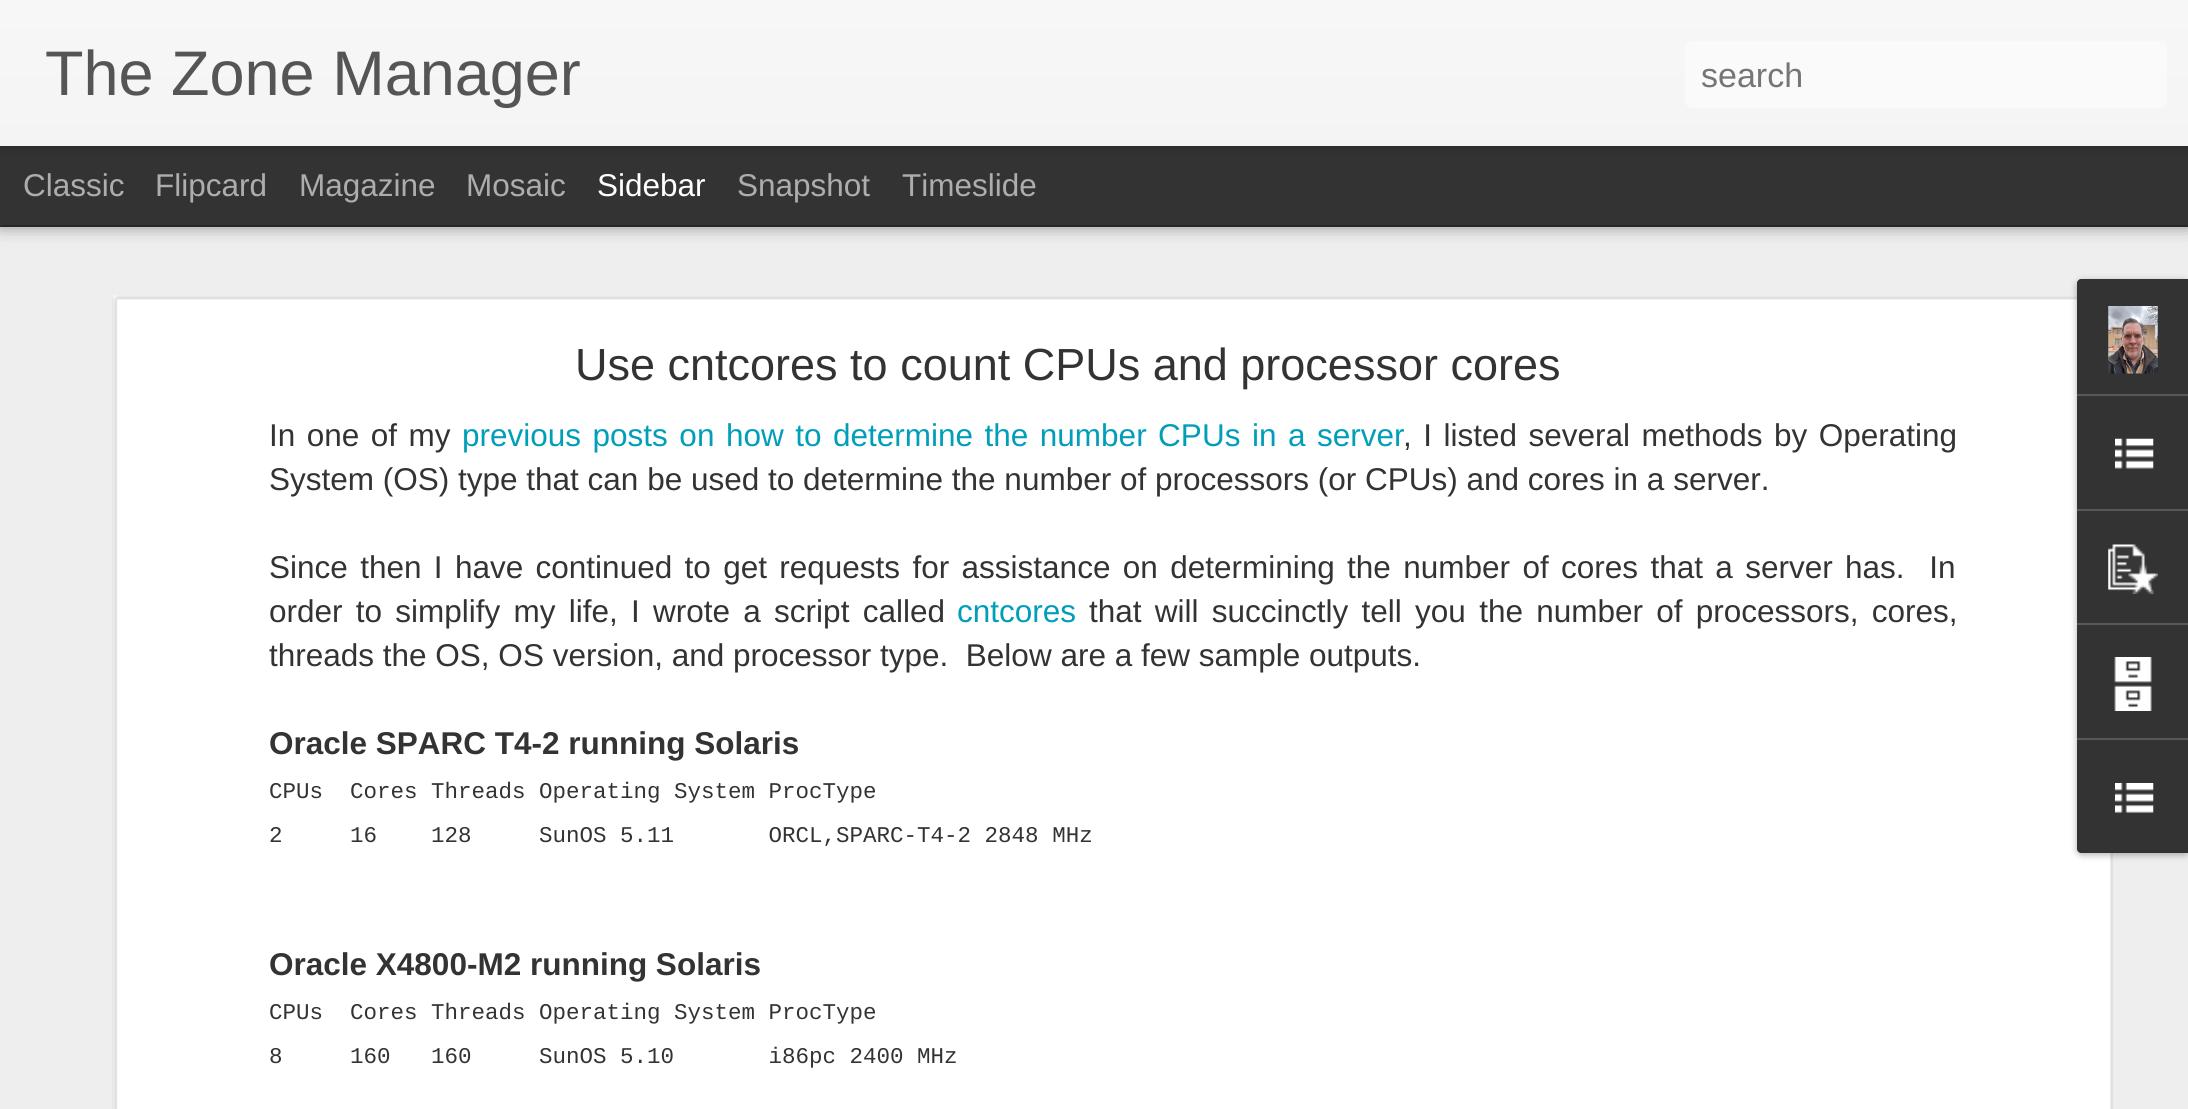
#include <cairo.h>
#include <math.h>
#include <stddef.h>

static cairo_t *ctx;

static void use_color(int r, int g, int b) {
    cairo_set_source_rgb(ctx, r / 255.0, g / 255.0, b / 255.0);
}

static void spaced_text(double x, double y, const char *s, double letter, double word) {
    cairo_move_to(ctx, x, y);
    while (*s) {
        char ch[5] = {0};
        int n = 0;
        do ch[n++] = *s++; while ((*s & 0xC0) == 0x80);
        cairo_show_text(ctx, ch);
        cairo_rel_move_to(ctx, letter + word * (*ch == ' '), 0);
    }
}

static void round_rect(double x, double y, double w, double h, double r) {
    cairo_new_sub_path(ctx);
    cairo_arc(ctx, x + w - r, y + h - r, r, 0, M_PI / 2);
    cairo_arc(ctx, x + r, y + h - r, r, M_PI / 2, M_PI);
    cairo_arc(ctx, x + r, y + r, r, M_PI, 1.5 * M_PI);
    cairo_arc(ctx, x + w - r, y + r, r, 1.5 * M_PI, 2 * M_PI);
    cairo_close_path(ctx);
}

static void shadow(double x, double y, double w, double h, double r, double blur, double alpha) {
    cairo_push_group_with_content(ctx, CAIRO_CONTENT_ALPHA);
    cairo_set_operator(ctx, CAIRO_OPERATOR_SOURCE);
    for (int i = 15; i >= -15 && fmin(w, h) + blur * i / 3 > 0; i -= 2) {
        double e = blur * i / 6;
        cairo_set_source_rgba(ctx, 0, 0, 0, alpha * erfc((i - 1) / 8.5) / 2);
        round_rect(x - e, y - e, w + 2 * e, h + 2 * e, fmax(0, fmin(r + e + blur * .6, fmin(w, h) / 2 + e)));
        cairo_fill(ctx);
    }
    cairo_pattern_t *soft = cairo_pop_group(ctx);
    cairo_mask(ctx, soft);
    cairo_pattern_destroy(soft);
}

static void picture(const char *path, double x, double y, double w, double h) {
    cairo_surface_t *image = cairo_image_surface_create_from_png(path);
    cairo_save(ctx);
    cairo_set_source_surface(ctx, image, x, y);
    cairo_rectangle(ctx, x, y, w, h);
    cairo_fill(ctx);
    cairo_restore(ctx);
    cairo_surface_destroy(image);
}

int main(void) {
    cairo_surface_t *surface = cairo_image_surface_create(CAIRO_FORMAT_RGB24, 2188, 1109);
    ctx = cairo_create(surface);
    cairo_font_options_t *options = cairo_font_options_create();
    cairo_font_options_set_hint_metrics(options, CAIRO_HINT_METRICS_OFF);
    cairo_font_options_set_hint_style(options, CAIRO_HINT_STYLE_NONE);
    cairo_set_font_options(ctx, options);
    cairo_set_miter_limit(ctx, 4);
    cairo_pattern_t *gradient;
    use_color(51, 51, 51);
    cairo_paint(ctx);
    use_color(238, 238, 238);
    cairo_rectangle(ctx, 0, 227, 2188, 882);
    cairo_fill(ctx);
    use_color(0, 0, 0);
    shadow(0, 146, 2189, 79, 0, 9, 0.5);
    use_color(51, 51, 51);
    cairo_rectangle(ctx, 0, 146, 2188, 79);
    cairo_fill(ctx);
    use_color(0, 0, 0);
    shadow(0, 0, 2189, 146, 0, 5.5, 0.3);
    gradient = cairo_pattern_create_linear(0, 0, 0, 146);
    cairo_pattern_add_color_stop_rgba(gradient, 0, 0.969, 0.969, 0.969, 1);
    cairo_pattern_add_color_stop_rgba(gradient, 1, 0.957, 0.957, 0.957, 1);
    cairo_set_source(ctx, gradient);
    cairo_pattern_destroy(gradient);
    cairo_rectangle(ctx, 0, 0, 2188, 146);
    cairo_fill(ctx);
    cairo_select_font_face(ctx, "Liberation Sans", CAIRO_FONT_SLANT_NORMAL, CAIRO_FONT_WEIGHT_NORMAL);
    cairo_set_font_size(ctx, 63);
    use_color(85, 85, 85);
    cairo_move_to(ctx, 45, 95);
    cairo_show_text(ctx, "The Zone Manager");
    use_color(250, 250, 250);
    round_rect(1685, 41, 482, 67, 7);
    cairo_fill(ctx);
    cairo_set_font_size(ctx, 34);
    use_color(117, 117, 117);
    cairo_move_to(ctx, 1701, 87);
    cairo_show_text(ctx, "search");
    cairo_set_font_size(ctx, 31.5);
    use_color(173, 173, 173);
    cairo_move_to(ctx, 23, 196);
    cairo_show_text(ctx, "Classic");
    cairo_move_to(ctx, 155, 196);
    cairo_show_text(ctx, "Flipcard");
    cairo_move_to(ctx, 299, 196);
    cairo_show_text(ctx, "Magazine");
    cairo_move_to(ctx, 466, 196);
    cairo_show_text(ctx, "Mosaic");
    use_color(255, 255, 255);
    cairo_move_to(ctx, 597, 196);
    cairo_show_text(ctx, "Sidebar");
    use_color(173, 173, 173);
    cairo_move_to(ctx, 737, 196);
    cairo_show_text(ctx, "Snapshot");
    cairo_move_to(ctx, 902, 196);
    cairo_show_text(ctx, "Timeslide");
    use_color(255, 255, 255);
    cairo_rectangle(ctx, 113, 295, 2002, 814);
    cairo_fill(ctx);
    picture("img1.png", 112, 295, 2003, 814);
    cairo_set_font_size(ctx, 45);
    use_color(51, 51, 51);
    cairo_move_to(ctx, 575, 380);
    cairo_show_text(ctx, "Use cntcores to count CPUs and processor cores");
    cairo_set_font_size(ctx, 31.5);
    spaced_text(269, 446, "In one of my", 0, 2.75);
    use_color(0, 158, 184);
    spaced_text(462, 446, "previous posts on how to determine the number CPUs in a server", 0, 2.75);
    use_color(51, 51, 51);
    spaced_text(1403, 446, ", I listed several methods by Operating", 0, 2.75);
    cairo_move_to(ctx, 269, 490);
    cairo_show_text(ctx, "System (OS) type that can be used to determine the number of processors (or CPUs) and cores in a server.");
    spaced_text(269, 578, "Since then I have continued to get requests for assistance on determining the number of cores that a server has.  In", 0, 3.6);
    spaced_text(269, 622, "order to simplify my life, I wrote a script called", 0, 4.5);
    use_color(0, 158, 184);
    cairo_move_to(ctx, 957, 622);
    cairo_show_text(ctx, "cntcores");
    use_color(51, 51, 51);
    spaced_text(1089, 622, "that will succinctly tell you the number of processors, cores,", 0, 4.5);
    cairo_move_to(ctx, 269, 666);
    cairo_show_text(ctx, "threads the OS, OS version, and processor type.  Below are a few sample outputs.");
    cairo_select_font_face(ctx, "Liberation Sans", CAIRO_FONT_SLANT_NORMAL, CAIRO_FONT_WEIGHT_BOLD);
    cairo_move_to(ctx, 269, 754);
    cairo_show_text(ctx, "Oracle SPARC T4-2 running Solaris");
    cairo_select_font_face(ctx, "Liberation Mono", CAIRO_FONT_SLANT_NORMAL, CAIRO_FONT_WEIGHT_NORMAL);
    cairo_set_font_size(ctx, 22.5);
    cairo_move_to(ctx, 269, 798);
    cairo_show_text(ctx, "CPUs  Cores Threads Operating System ProcType");
    cairo_move_to(ctx, 269, 842);
    cairo_show_text(ctx, "2     16    128     SunOS 5.11       ORCL,SPARC-T4-2 2848 MHz");
    cairo_select_font_face(ctx, "Liberation Sans", CAIRO_FONT_SLANT_NORMAL, CAIRO_FONT_WEIGHT_BOLD);
    cairo_set_font_size(ctx, 31.5);
    cairo_move_to(ctx, 269, 975);
    cairo_show_text(ctx, "Oracle X4800-M2 running Solaris");
    cairo_select_font_face(ctx, "Liberation Mono", CAIRO_FONT_SLANT_NORMAL, CAIRO_FONT_WEIGHT_NORMAL);
    cairo_set_font_size(ctx, 22.5);
    cairo_move_to(ctx, 269, 1019);
    cairo_show_text(ctx, "CPUs  Cores Threads Operating System ProcType");
    cairo_move_to(ctx, 269, 1063);
    cairo_show_text(ctx, "8     160   160     SunOS 5.10       i86pc 2400 MHz");
    use_color(0, 0, 0);
    shadow(2077, 281, 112, 574, 5, 3.5, 0.3);
    use_color(51, 51, 51);
    cairo_new_path(ctx);
    cairo_move_to(ctx, 2082, 279);
    cairo_line_to(ctx, 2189, 279);
    cairo_line_to(ctx, 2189, 853);
    cairo_line_to(ctx, 2082, 853);
    cairo_curve_to(ctx, 2079, 853, 2077, 851, 2077, 848);
    cairo_line_to(ctx, 2077, 284);
    cairo_curve_to(ctx, 2077, 281, 2079, 279, 2082, 279);
    cairo_close_path(ctx);
    cairo_fill(ctx);
    cairo_new_path(ctx);
    cairo_move_to(ctx, 2082, 279);
    cairo_line_to(ctx, 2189, 279);
    cairo_line_to(ctx, 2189, 394);
    cairo_line_to(ctx, 2077, 394);
    cairo_line_to(ctx, 2077, 284);
    cairo_curve_to(ctx, 2077, 281, 2079, 279, 2082, 279);
    cairo_close_path(ctx);
    cairo_fill(ctx);
    picture("img2.png", 2108, 306, 50, 68);
    use_color(88, 88, 88);
    cairo_rectangle(ctx, 2077, 394, 111, 2);
    cairo_fill(ctx);
    picture("img3.png", 2115, 438, 39, 31);
    cairo_rectangle(ctx, 2077, 509, 111, 2);
    cairo_fill(ctx);
    picture("img4.png", 2108, 544, 50, 50);
    cairo_rectangle(ctx, 2077, 623, 111, 2);
    cairo_fill(ctx);
    picture("img5.png", 2114, 657, 38, 54);
    use_color(51, 51, 51);
    cairo_new_path(ctx);
    cairo_move_to(ctx, 2077, 738);
    cairo_line_to(ctx, 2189, 738);
    cairo_line_to(ctx, 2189, 853);
    cairo_line_to(ctx, 2082, 853);
    cairo_curve_to(ctx, 2079, 853, 2077, 851, 2077, 848);
    cairo_close_path(ctx);
    cairo_fill(ctx);
    use_color(88, 88, 88);
    cairo_rectangle(ctx, 2077, 738, 111, 2);
    cairo_fill(ctx);
    picture("img6.png", 2115, 783, 39, 30);
    cairo_surface_write_to_png(surface, "result.png");
    cairo_font_options_destroy(options);
    cairo_destroy(ctx);
    cairo_surface_destroy(surface);
    return 0;
}
